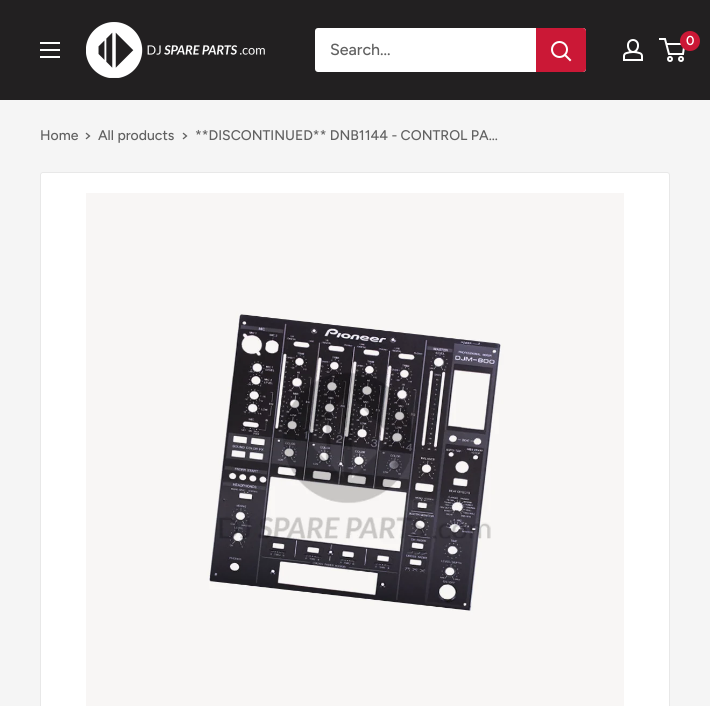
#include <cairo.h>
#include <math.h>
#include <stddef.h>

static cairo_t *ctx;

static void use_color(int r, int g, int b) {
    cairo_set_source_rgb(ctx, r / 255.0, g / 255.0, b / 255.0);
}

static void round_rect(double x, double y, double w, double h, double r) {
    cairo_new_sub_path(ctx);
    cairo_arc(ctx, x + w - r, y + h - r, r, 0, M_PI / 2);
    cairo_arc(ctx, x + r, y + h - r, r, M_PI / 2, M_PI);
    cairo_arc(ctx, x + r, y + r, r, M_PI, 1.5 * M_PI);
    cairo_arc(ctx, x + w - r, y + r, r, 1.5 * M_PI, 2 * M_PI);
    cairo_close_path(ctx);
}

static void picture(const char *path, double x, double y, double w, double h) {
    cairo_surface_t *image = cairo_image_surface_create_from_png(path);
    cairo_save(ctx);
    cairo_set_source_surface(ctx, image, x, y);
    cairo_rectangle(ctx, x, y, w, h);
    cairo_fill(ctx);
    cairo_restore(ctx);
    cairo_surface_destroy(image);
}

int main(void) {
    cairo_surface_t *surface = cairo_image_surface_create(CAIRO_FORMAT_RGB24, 710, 706);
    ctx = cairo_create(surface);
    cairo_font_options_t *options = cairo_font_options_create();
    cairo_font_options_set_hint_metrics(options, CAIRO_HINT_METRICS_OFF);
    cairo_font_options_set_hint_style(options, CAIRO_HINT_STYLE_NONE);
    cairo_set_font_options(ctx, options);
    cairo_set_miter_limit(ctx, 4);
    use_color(245, 245, 245);
    cairo_paint(ctx);
    use_color(34, 32, 33);
    cairo_rectangle(ctx, 0, 0, 710, 100);
    cairo_fill(ctx);
    picture("img1.png", 86, 22, 179, 56);
    picture("img2.png", 623, 39, 20, 22);
    cairo_arc(ctx, 670, 59, 2, 0, 2 * M_PI);
    use_color(255, 255, 255);
    cairo_stroke(ctx);
    cairo_arc(ctx, 681, 59, 2, 0, 2 * M_PI);
    cairo_stroke(ctx);
    cairo_new_path(ctx);
    cairo_move_to(ctx, 666.5, 44);
    cairo_line_to(ctx, 684.5, 44);
    cairo_line_to(ctx, 683, 54);
    cairo_line_to(ctx, 669, 54);
    cairo_line_to(ctx, 665, 39);
    cairo_line_to(ctx, 659, 39);
    cairo_stroke(ctx);
    use_color(203, 24, 54);
    cairo_arc(ctx, 690, 41, 10, 0, 2 * M_PI);
    cairo_fill(ctx);
    cairo_select_font_face(ctx, "Figtree SemiBold", CAIRO_FONT_SLANT_NORMAL, CAIRO_FONT_WEIGHT_NORMAL);
    cairo_set_font_size(ctx, 13);
    use_color(255, 255, 255);
    cairo_move_to(ctx, 686, 45);
    cairo_show_text(ctx, "0");
    picture("img3.png", 40, 42, 20, 16);
    round_rect(315, 28, 271, 44, 3);
    cairo_fill(ctx);
    cairo_select_font_face(ctx, "Figtree Medium", CAIRO_FONT_SLANT_NORMAL, CAIRO_FONT_WEIGHT_NORMAL);
    cairo_set_font_size(ctx, 16);
    use_color(97, 97, 97);
    cairo_move_to(ctx, 330, 55);
    cairo_show_text(ctx, "Search...");
    use_color(203, 24, 54);
    cairo_new_path(ctx);
    cairo_move_to(ctx, 536, 28);
    cairo_line_to(ctx, 583, 28);
    cairo_curve_to(ctx, 584.5, 28, 586, 29.5, 586, 31);
    cairo_line_to(ctx, 586, 69);
    cairo_curve_to(ctx, 586, 70.5, 584.5, 72, 583, 72);
    cairo_line_to(ctx, 536, 72);
    cairo_close_path(ctx);
    cairo_fill(ctx);
    cairo_new_path(ctx);
    cairo_move_to(ctx, 570, 60);
    cairo_line_to(ctx, 565, 55);
    use_color(255, 255, 255);
    cairo_set_line_cap(ctx, CAIRO_LINE_CAP_SQUARE);
    cairo_stroke(ctx);
    cairo_arc(ctx, 559.5, 49.5, 7.5, 0, 2 * M_PI);
    cairo_set_line_cap(ctx, CAIRO_LINE_CAP_BUTT);
    cairo_stroke(ctx);
    cairo_set_font_size(ctx, 14);
    use_color(97, 97, 97);
    cairo_move_to(ctx, 40, 140);
    cairo_show_text(ctx, "Home");
    cairo_new_path(ctx);
    cairo_move_to(ctx, 86.5, 133.5);
    cairo_line_to(ctx, 89.5, 136);
    cairo_line_to(ctx, 86.5, 138.5);
    cairo_set_line_width(ctx, 1.3);
    cairo_set_line_cap(ctx, CAIRO_LINE_CAP_SQUARE);
    cairo_stroke(ctx);
    cairo_move_to(ctx, 98, 140);
    cairo_show_text(ctx, "All products");
    cairo_new_path(ctx);
    cairo_move_to(ctx, 183.5, 133.5);
    cairo_line_to(ctx, 186.5, 136);
    cairo_line_to(ctx, 183.5, 138.5);
    cairo_stroke(ctx);
    cairo_move_to(ctx, 195, 140);
    cairo_show_text(ctx, "**DISCONTINUED** DNB1144 - CONTROL PA...");
    use_color(255, 255, 255);
    round_rect(40.5, 172.5, 629, 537, 2.5);
    cairo_fill_preserve(ctx);
    use_color(232, 232, 232);
    cairo_set_line_width(ctx, 1);
    cairo_set_line_cap(ctx, CAIRO_LINE_CAP_BUTT);
    cairo_stroke(ctx);
    picture("img4.png", 86, 193, 538, 513);
    cairo_surface_write_to_png(surface, "result.png");
    cairo_font_options_destroy(options);
    cairo_destroy(ctx);
    cairo_surface_destroy(surface);
    return 0;
}
